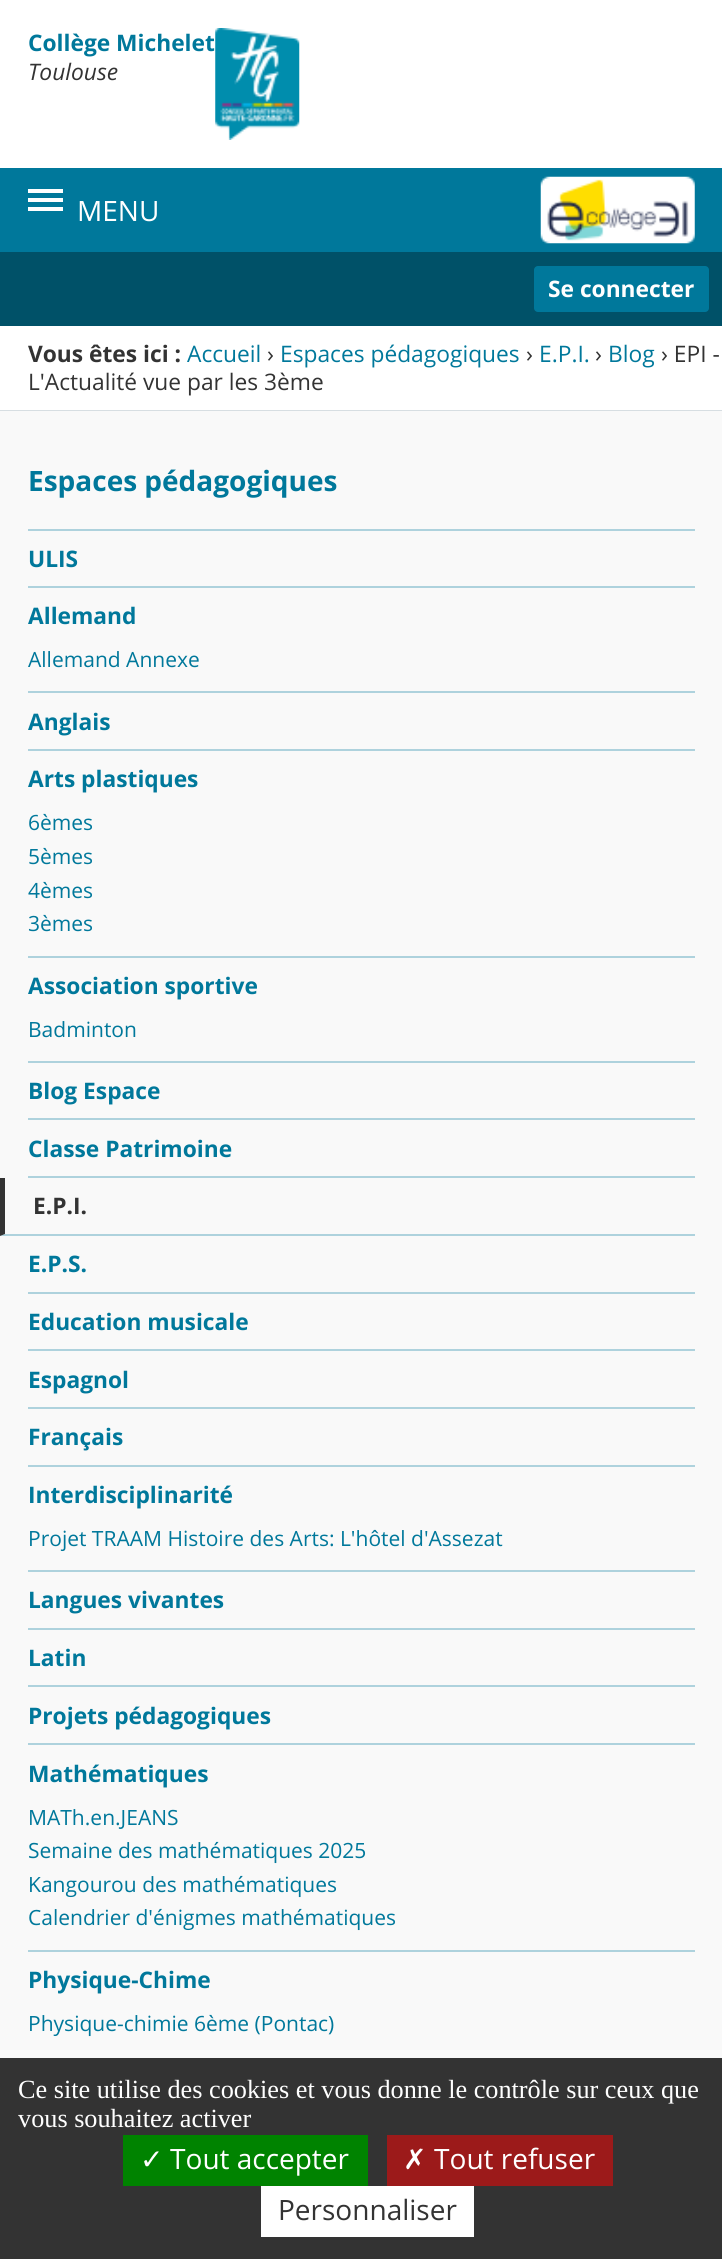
#include <cairo.h>
#include <math.h>
#include <stddef.h>

static cairo_t *ctx;

static void use_color(int r, int g, int b) {
    cairo_set_source_rgb(ctx, r / 255.0, g / 255.0, b / 255.0);
}

static void round_rect(double x, double y, double w, double h, double r) {
    cairo_new_sub_path(ctx);
    cairo_arc(ctx, x + w - r, y + h - r, r, 0, M_PI / 2);
    cairo_arc(ctx, x + r, y + h - r, r, M_PI / 2, M_PI);
    cairo_arc(ctx, x + r, y + r, r, M_PI, 1.5 * M_PI);
    cairo_arc(ctx, x + w - r, y + r, r, 1.5 * M_PI, 2 * M_PI);
    cairo_close_path(ctx);
}

static void picture(const char *path, double x, double y, double w, double h) {
    cairo_surface_t *image = cairo_image_surface_create_from_png(path);
    cairo_save(ctx);
    cairo_set_source_surface(ctx, image, x, y);
    cairo_rectangle(ctx, x, y, w, h);
    cairo_fill(ctx);
    cairo_restore(ctx);
    cairo_surface_destroy(image);
}

int main(void) {
    cairo_surface_t *surface = cairo_image_surface_create(CAIRO_FORMAT_RGB24, 722, 2259);
    ctx = cairo_create(surface);
    cairo_font_options_t *options = cairo_font_options_create();
    cairo_font_options_set_hint_metrics(options, CAIRO_HINT_METRICS_OFF);
    cairo_font_options_set_hint_style(options, CAIRO_HINT_STYLE_NONE);
    cairo_set_font_options(ctx, options);
    cairo_set_miter_limit(ctx, 4);
    use_color(255, 255, 255);
    cairo_paint(ctx);
    cairo_select_font_face(ctx, "Open Sans", CAIRO_FONT_SLANT_NORMAL, CAIRO_FONT_WEIGHT_BOLD);
    cairo_set_font_size(ctx, 22.75);
    use_color(0, 120, 155);
    cairo_move_to(ctx, 28, 51);
    cairo_show_text(ctx, "Collège Michelet");
    cairo_select_font_face(ctx, "Open Sans", CAIRO_FONT_SLANT_ITALIC, CAIRO_FONT_WEIGHT_NORMAL);
    use_color(51, 51, 51);
    cairo_move_to(ctx, 28, 80);
    cairo_show_text(ctx, "Toulouse");
    picture("img1.png", 215, 28, 85, 112);
    use_color(0, 120, 155);
    cairo_rectangle(ctx, 0, 168, 722, 84);
    cairo_fill(ctx);
    use_color(255, 255, 255);
    cairo_rectangle(ctx, 28, 189, 35, 4);
    cairo_fill(ctx);
    cairo_rectangle(ctx, 28, 198, 35, 4);
    cairo_fill(ctx);
    cairo_rectangle(ctx, 28, 207, 35, 4);
    cairo_fill(ctx);
    cairo_select_font_face(ctx, "Open Sans", CAIRO_FONT_SLANT_NORMAL, CAIRO_FONT_WEIGHT_NORMAL);
    cairo_set_font_size(ctx, 28);
    cairo_move_to(ctx, 77, 221);
    cairo_show_text(ctx, "MENU");
    use_color(0, 81, 104);
    cairo_rectangle(ctx, 0, 252, 722, 74);
    cairo_fill(ctx);
    picture("img2.png", 540, 176, 155, 68);
    use_color(0, 120, 155);
    round_rect(534, 266, 175, 46, 4);
    cairo_fill(ctx);
    cairo_select_font_face(ctx, "Open Sans", CAIRO_FONT_SLANT_NORMAL, CAIRO_FONT_WEIGHT_BOLD);
    cairo_set_font_size(ctx, 22.75);
    use_color(255, 255, 255);
    cairo_move_to(ctx, 548, 297);
    cairo_show_text(ctx, "Se connecter");
    use_color(215, 222, 226);
    cairo_rectangle(ctx, 0, 410, 722, 1);
    cairo_fill(ctx);
    use_color(51, 51, 51);
    cairo_move_to(ctx, 28, 362);
    cairo_show_text(ctx, "Vous êtes ici :");
    cairo_select_font_face(ctx, "Open Sans", CAIRO_FONT_SLANT_NORMAL, CAIRO_FONT_WEIGHT_NORMAL);
    use_color(0, 120, 155);
    cairo_move_to(ctx, 187, 362);
    cairo_show_text(ctx, "Accueil");
    use_color(51, 51, 51);
    cairo_move_to(ctx, 267, 362);
    cairo_show_text(ctx, "›");
    use_color(0, 120, 155);
    cairo_move_to(ctx, 280, 362);
    cairo_show_text(ctx, "Espaces pédagogiques");
    use_color(51, 51, 51);
    cairo_move_to(ctx, 526, 362);
    cairo_show_text(ctx, "›");
    use_color(0, 120, 155);
    cairo_move_to(ctx, 539, 362);
    cairo_show_text(ctx, "E.P.I.");
    use_color(51, 51, 51);
    cairo_move_to(ctx, 595, 362);
    cairo_show_text(ctx, "›");
    use_color(0, 120, 155);
    cairo_move_to(ctx, 608, 362);
    cairo_show_text(ctx, "Blog");
    use_color(51, 51, 51);
    cairo_move_to(ctx, 661, 362);
    cairo_show_text(ctx, "› EPI -");
    cairo_move_to(ctx, 28, 390);
    cairo_show_text(ctx, "L'Actualité vue par les 3ème");
    use_color(249, 249, 249);
    cairo_rectangle(ctx, 0, 411, 722, 1647);
    cairo_fill(ctx);
    cairo_select_font_face(ctx, "Open Sans", CAIRO_FONT_SLANT_NORMAL, CAIRO_FONT_WEIGHT_BOLD);
    cairo_set_font_size(ctx, 28);
    use_color(0, 120, 155);
    cairo_move_to(ctx, 28, 491);
    cairo_show_text(ctx, "Espaces pédagogiques");
    use_color(174, 210, 221);
    cairo_rectangle(ctx, 28, 529, 667, 2);
    cairo_fill(ctx);
    cairo_rectangle(ctx, 28, 586, 667, 2);
    cairo_fill(ctx);
    cairo_set_font_size(ctx, 22.75);
    use_color(0, 120, 155);
    cairo_move_to(ctx, 28, 567);
    cairo_show_text(ctx, "ULIS");
    use_color(174, 210, 221);
    cairo_rectangle(ctx, 28, 691, 667, 2);
    cairo_fill(ctx);
    use_color(0, 120, 155);
    cairo_move_to(ctx, 28, 624);
    cairo_show_text(ctx, "Allemand");
    cairo_select_font_face(ctx, "Open Sans", CAIRO_FONT_SLANT_NORMAL, CAIRO_FONT_WEIGHT_NORMAL);
    cairo_set_font_size(ctx, 21);
    cairo_move_to(ctx, 28, 667);
    cairo_show_text(ctx, "Allemand Annexe");
    use_color(174, 210, 221);
    cairo_rectangle(ctx, 28, 749, 667, 2);
    cairo_fill(ctx);
    cairo_select_font_face(ctx, "Open Sans", CAIRO_FONT_SLANT_NORMAL, CAIRO_FONT_WEIGHT_BOLD);
    cairo_set_font_size(ctx, 22.75);
    use_color(0, 120, 155);
    cairo_move_to(ctx, 28, 730);
    cairo_show_text(ctx, "Anglais");
    use_color(174, 210, 221);
    cairo_rectangle(ctx, 28, 956, 667, 2);
    cairo_fill(ctx);
    use_color(0, 120, 155);
    cairo_move_to(ctx, 28, 787);
    cairo_show_text(ctx, "Arts plastiques");
    cairo_select_font_face(ctx, "Open Sans", CAIRO_FONT_SLANT_NORMAL, CAIRO_FONT_WEIGHT_NORMAL);
    cairo_set_font_size(ctx, 21);
    cairo_move_to(ctx, 28, 830);
    cairo_show_text(ctx, "6èmes");
    cairo_move_to(ctx, 28, 864);
    cairo_show_text(ctx, "5èmes");
    cairo_move_to(ctx, 28, 898);
    cairo_show_text(ctx, "4èmes");
    cairo_move_to(ctx, 28, 931);
    cairo_show_text(ctx, "3èmes");
    use_color(174, 210, 221);
    cairo_rectangle(ctx, 28, 1061, 667, 2);
    cairo_fill(ctx);
    cairo_select_font_face(ctx, "Open Sans", CAIRO_FONT_SLANT_NORMAL, CAIRO_FONT_WEIGHT_BOLD);
    cairo_set_font_size(ctx, 22.75);
    use_color(0, 120, 155);
    cairo_move_to(ctx, 28, 994);
    cairo_show_text(ctx, "Association sportive");
    cairo_select_font_face(ctx, "Open Sans", CAIRO_FONT_SLANT_NORMAL, CAIRO_FONT_WEIGHT_NORMAL);
    cairo_set_font_size(ctx, 21);
    cairo_move_to(ctx, 28, 1037);
    cairo_show_text(ctx, "Badminton");
    use_color(174, 210, 221);
    cairo_rectangle(ctx, 28, 1118, 667, 2);
    cairo_fill(ctx);
    cairo_select_font_face(ctx, "Open Sans", CAIRO_FONT_SLANT_NORMAL, CAIRO_FONT_WEIGHT_BOLD);
    cairo_set_font_size(ctx, 22.75);
    use_color(0, 120, 155);
    cairo_move_to(ctx, 28, 1099);
    cairo_show_text(ctx, "Blog Espace");
    use_color(174, 210, 221);
    cairo_rectangle(ctx, 28, 1176, 667, 2);
    cairo_fill(ctx);
    use_color(0, 120, 155);
    cairo_move_to(ctx, 28, 1157);
    cairo_show_text(ctx, "Classe Patrimoine");
    use_color(174, 210, 221);
    cairo_new_path(ctx);
    cairo_move_to(ctx, 695, 1236);
    cairo_line_to(ctx, 0, 1236);
    cairo_line_to(ctx, 5, 1234);
    cairo_line_to(ctx, 695, 1234);
    cairo_close_path(ctx);
    cairo_fill(ctx);
    use_color(51, 51, 51);
    cairo_new_path(ctx);
    cairo_move_to(ctx, 0, 1236);
    cairo_line_to(ctx, 0, 1178);
    cairo_line_to(ctx, 5, 1178);
    cairo_line_to(ctx, 5, 1234);
    cairo_close_path(ctx);
    cairo_fill(ctx);
    cairo_move_to(ctx, 33, 1214);
    cairo_show_text(ctx, "E.P.I.");
    use_color(174, 210, 221);
    cairo_rectangle(ctx, 28, 1292, 667, 2);
    cairo_fill(ctx);
    use_color(0, 120, 155);
    cairo_move_to(ctx, 28, 1272);
    cairo_show_text(ctx, "E.P.S.");
    use_color(174, 210, 221);
    cairo_rectangle(ctx, 28, 1349, 667, 2);
    cairo_fill(ctx);
    use_color(0, 120, 155);
    cairo_move_to(ctx, 28, 1330);
    cairo_show_text(ctx, "Education musicale");
    use_color(174, 210, 221);
    cairo_rectangle(ctx, 28, 1407, 667, 2);
    cairo_fill(ctx);
    use_color(0, 120, 155);
    cairo_move_to(ctx, 28, 1388);
    cairo_show_text(ctx, "Espagnol");
    use_color(174, 210, 221);
    cairo_rectangle(ctx, 28, 1465, 667, 2);
    cairo_fill(ctx);
    use_color(0, 120, 155);
    cairo_move_to(ctx, 28, 1445);
    cairo_show_text(ctx, "Français");
    use_color(174, 210, 221);
    cairo_rectangle(ctx, 28, 1570, 667, 2);
    cairo_fill(ctx);
    use_color(0, 120, 155);
    cairo_move_to(ctx, 28, 1503);
    cairo_show_text(ctx, "Interdisciplinarité");
    cairo_select_font_face(ctx, "Open Sans", CAIRO_FONT_SLANT_NORMAL, CAIRO_FONT_WEIGHT_NORMAL);
    cairo_set_font_size(ctx, 21);
    cairo_move_to(ctx, 28, 1546);
    cairo_show_text(ctx, "Projet TRAAM Histoire des Arts: L'hôtel d'Assezat");
    use_color(174, 210, 221);
    cairo_rectangle(ctx, 28, 1628, 667, 2);
    cairo_fill(ctx);
    cairo_select_font_face(ctx, "Open Sans", CAIRO_FONT_SLANT_NORMAL, CAIRO_FONT_WEIGHT_BOLD);
    cairo_set_font_size(ctx, 22.75);
    use_color(0, 120, 155);
    cairo_move_to(ctx, 28, 1608);
    cairo_show_text(ctx, "Langues vivantes");
    use_color(174, 210, 221);
    cairo_rectangle(ctx, 28, 1685, 667, 2);
    cairo_fill(ctx);
    use_color(0, 120, 155);
    cairo_move_to(ctx, 28, 1666);
    cairo_show_text(ctx, "Latin");
    use_color(174, 210, 221);
    cairo_rectangle(ctx, 28, 1743, 667, 2);
    cairo_fill(ctx);
    use_color(0, 120, 155);
    cairo_move_to(ctx, 28, 1724);
    cairo_show_text(ctx, "Projets pédagogiques");
    use_color(174, 210, 221);
    cairo_rectangle(ctx, 28, 1950, 667, 2);
    cairo_fill(ctx);
    use_color(0, 120, 155);
    cairo_move_to(ctx, 28, 1782);
    cairo_show_text(ctx, "Mathématiques");
    cairo_select_font_face(ctx, "Open Sans", CAIRO_FONT_SLANT_NORMAL, CAIRO_FONT_WEIGHT_NORMAL);
    cairo_set_font_size(ctx, 21);
    cairo_move_to(ctx, 28, 1825);
    cairo_show_text(ctx, "MATh.en.JEANS");
    cairo_move_to(ctx, 28, 1858);
    cairo_show_text(ctx, "Semaine des mathématiques 2025");
    cairo_move_to(ctx, 28, 1892);
    cairo_show_text(ctx, "Kangourou des mathématiques");
    cairo_move_to(ctx, 28, 1925);
    cairo_show_text(ctx, "Calendrier d'énigmes mathématiques");
    cairo_select_font_face(ctx, "Open Sans", CAIRO_FONT_SLANT_NORMAL, CAIRO_FONT_WEIGHT_BOLD);
    cairo_set_font_size(ctx, 22.75);
    cairo_move_to(ctx, 28, 1988);
    cairo_show_text(ctx, "Physique-Chime");
    cairo_select_font_face(ctx, "Open Sans", CAIRO_FONT_SLANT_NORMAL, CAIRO_FONT_WEIGHT_NORMAL);
    cairo_set_font_size(ctx, 21);
    cairo_move_to(ctx, 28, 2031);
    cairo_show_text(ctx, "Physique-chimie 6ème (Pontac)");
    use_color(51, 51, 51);
    cairo_rectangle(ctx, 0, 2058, 722, 201);
    cairo_fill(ctx);
    cairo_select_font_face(ctx, "Liberation Serif", CAIRO_FONT_SLANT_NORMAL, CAIRO_FONT_WEIGHT_NORMAL);
    cairo_set_font_size(ctx, 26.25);
    use_color(255, 255, 255);
    cairo_move_to(ctx, 18, 2098);
    cairo_show_text(ctx, "Ce site utilise des cookies et vous donne le contrôle sur ceux que");
    cairo_move_to(ctx, 18, 2127);
    cairo_show_text(ctx, "vous souhaitez activer");
    use_color(0, 131, 0);
    cairo_rectangle(ctx, 123, 2135, 245, 51);
    cairo_fill(ctx);
    cairo_select_font_face(ctx, "DejaVu Sans", CAIRO_FONT_SLANT_NORMAL, CAIRO_FONT_WEIGHT_NORMAL);
    cairo_set_font_size(ctx, 28);
    use_color(255, 255, 255);
    cairo_move_to(ctx, 140, 2169);
    cairo_show_text(ctx, "✓");
    cairo_select_font_face(ctx, "Open Sans", CAIRO_FONT_SLANT_NORMAL, CAIRO_FONT_WEIGHT_NORMAL);
    cairo_move_to(ctx, 170, 2169);
    cairo_show_text(ctx, "Tout accepter");
    use_color(156, 26, 26);
    cairo_rectangle(ctx, 387, 2135, 226, 51);
    cairo_fill(ctx);
    cairo_select_font_face(ctx, "DejaVu Sans", CAIRO_FONT_SLANT_NORMAL, CAIRO_FONT_WEIGHT_NORMAL);
    use_color(255, 255, 255);
    cairo_move_to(ctx, 403, 2169);
    cairo_show_text(ctx, "✗");
    cairo_select_font_face(ctx, "Open Sans", CAIRO_FONT_SLANT_NORMAL, CAIRO_FONT_WEIGHT_NORMAL);
    cairo_move_to(ctx, 434, 2169);
    cairo_show_text(ctx, "Tout refuser");
    cairo_rectangle(ctx, 261, 2186, 213, 51);
    cairo_fill(ctx);
    use_color(51, 51, 51);
    cairo_move_to(ctx, 278, 2220);
    cairo_show_text(ctx, "Personnaliser");
    cairo_surface_write_to_png(surface, "result.png");
    cairo_font_options_destroy(options);
    cairo_destroy(ctx);
    cairo_surface_destroy(surface);
    return 0;
}
